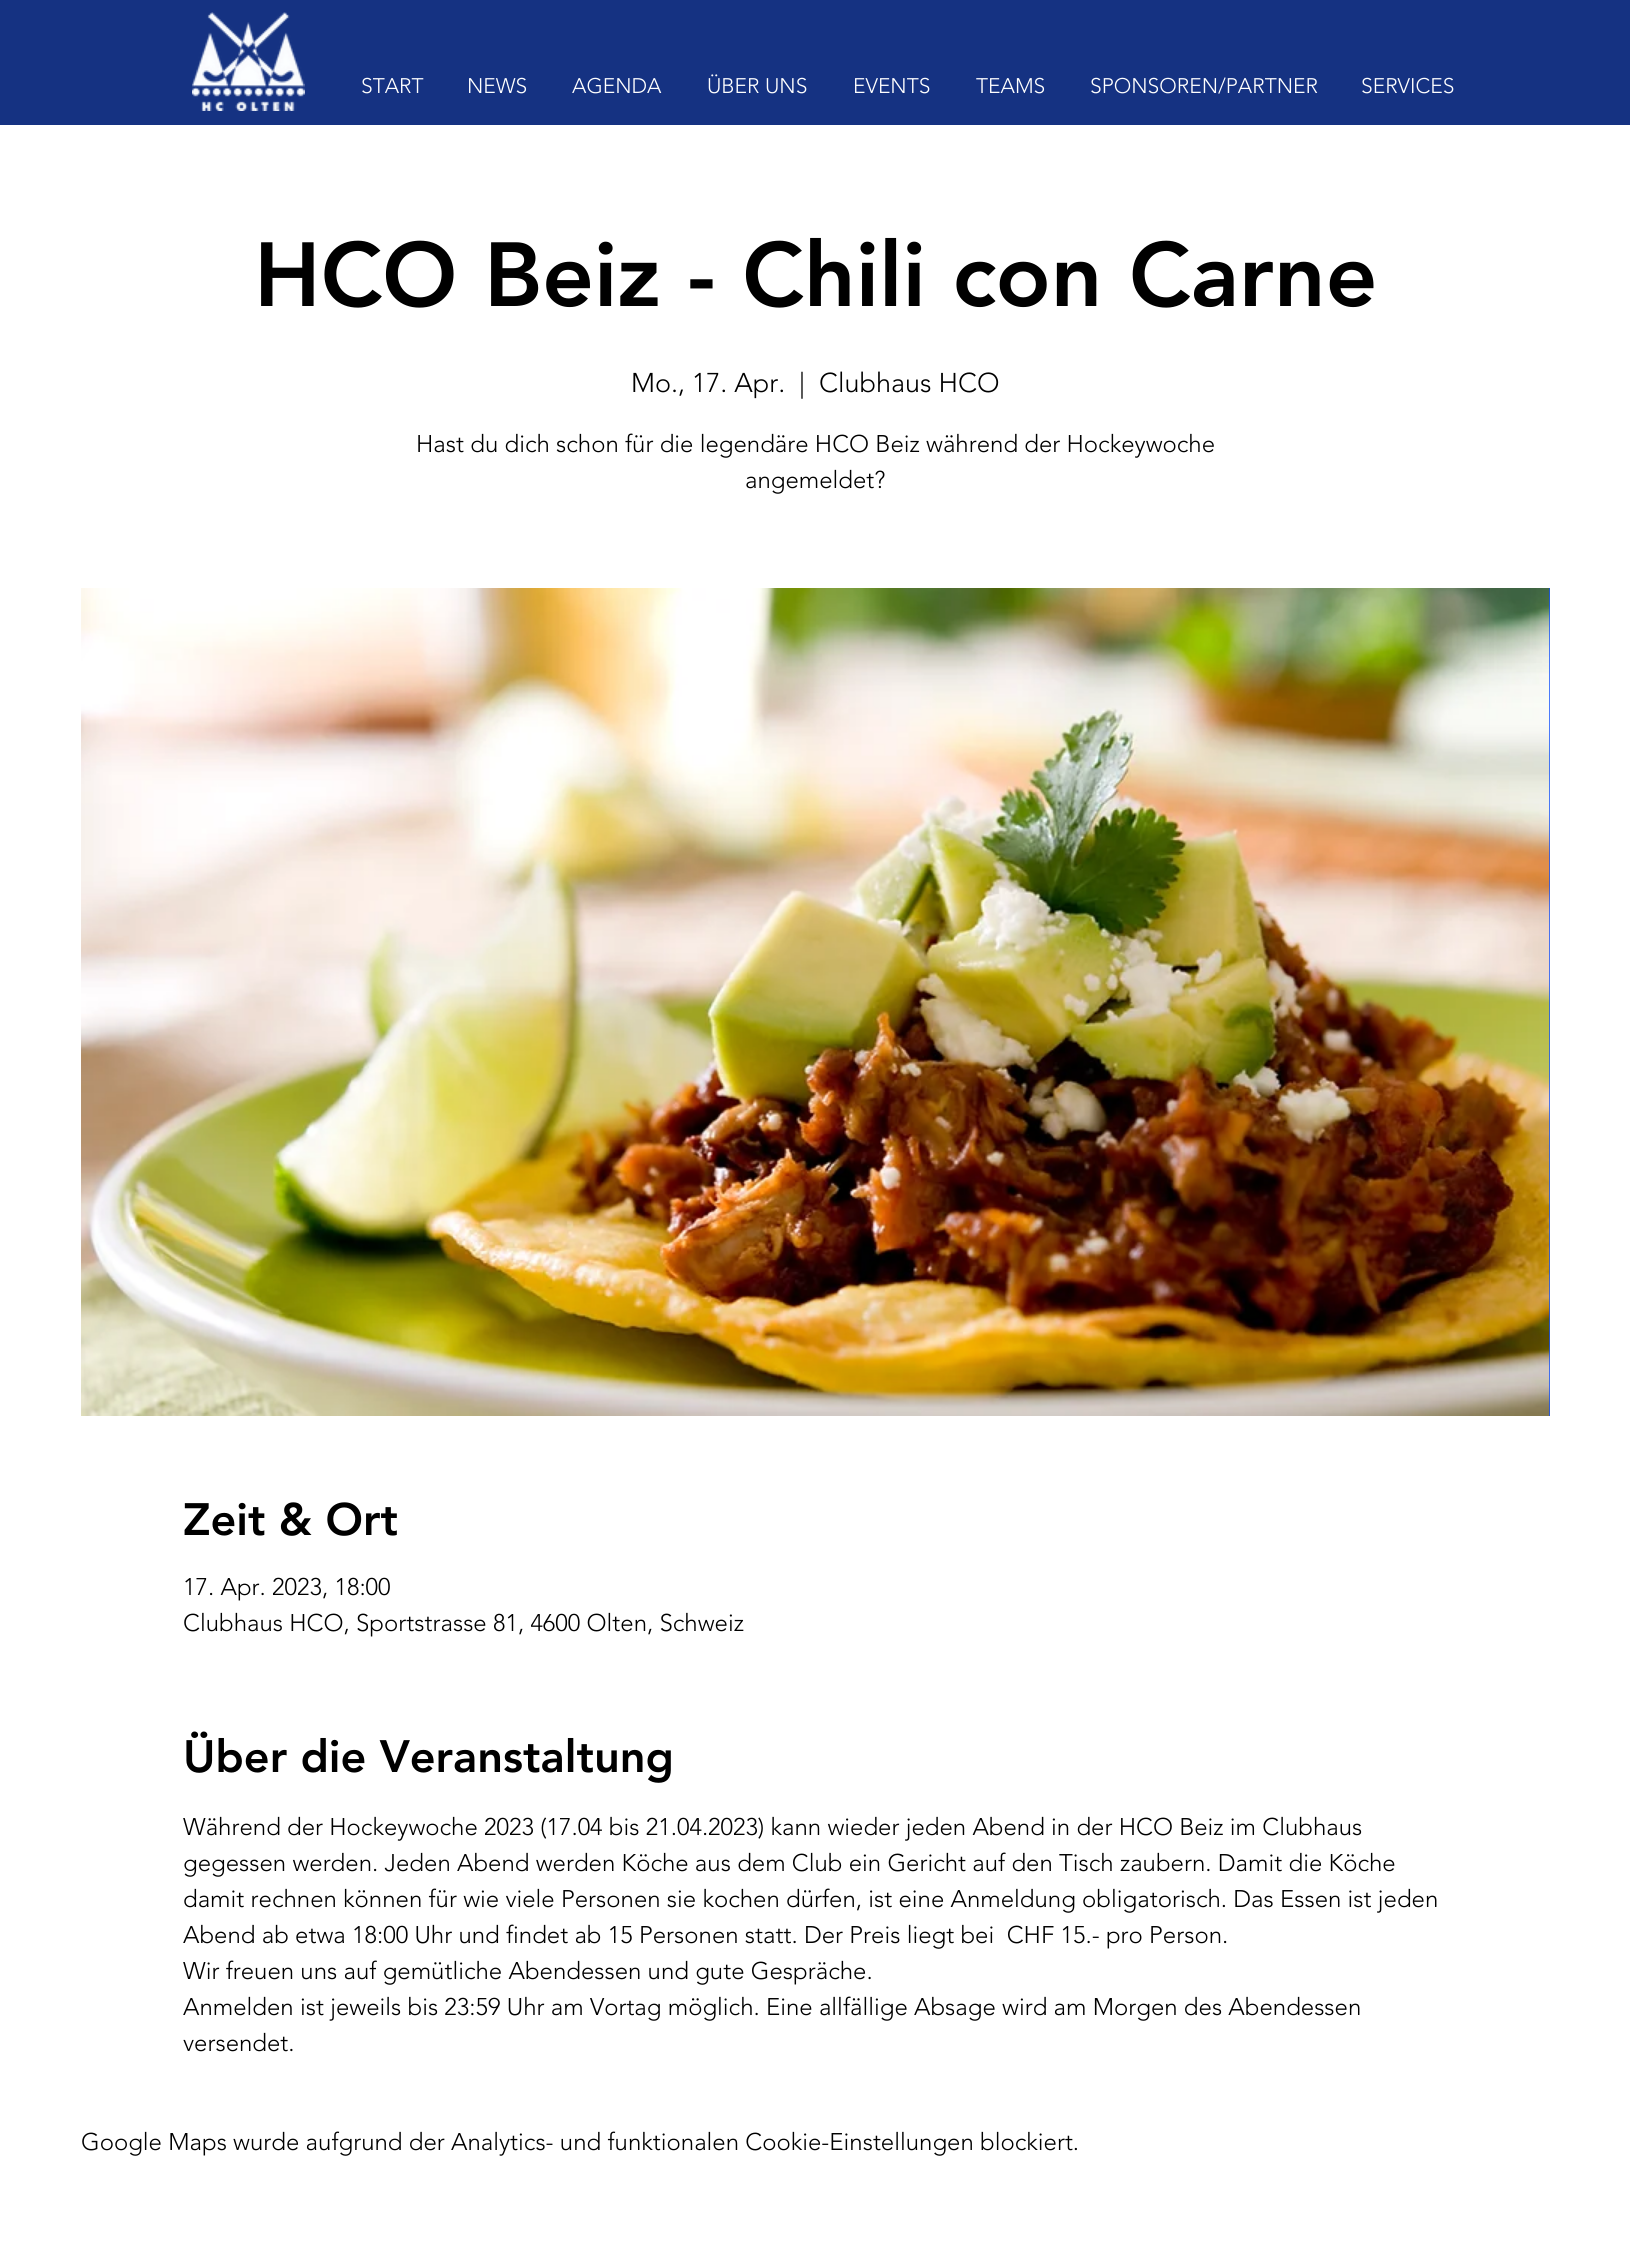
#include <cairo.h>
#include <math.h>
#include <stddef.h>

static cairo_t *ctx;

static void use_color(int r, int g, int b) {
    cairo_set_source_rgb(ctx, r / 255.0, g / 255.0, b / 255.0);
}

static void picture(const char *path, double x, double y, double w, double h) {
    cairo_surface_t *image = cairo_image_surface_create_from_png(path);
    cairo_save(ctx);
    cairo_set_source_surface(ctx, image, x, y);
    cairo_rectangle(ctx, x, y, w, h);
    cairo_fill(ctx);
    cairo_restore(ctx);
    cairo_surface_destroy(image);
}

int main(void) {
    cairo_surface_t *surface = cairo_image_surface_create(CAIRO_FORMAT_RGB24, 1630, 2264);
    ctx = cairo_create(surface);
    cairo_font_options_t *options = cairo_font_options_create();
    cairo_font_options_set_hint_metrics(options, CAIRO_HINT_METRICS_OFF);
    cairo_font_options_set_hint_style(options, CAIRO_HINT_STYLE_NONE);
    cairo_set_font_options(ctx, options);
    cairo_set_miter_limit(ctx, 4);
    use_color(255, 255, 255);
    cairo_paint(ctx);
    use_color(21, 50, 130);
    cairo_rectangle(ctx, 0, 0, 1630, 125);
    cairo_fill(ctx);
    picture("img1.png", 192, 12, 113, 99);
    cairo_select_font_face(ctx, "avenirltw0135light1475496 Light", CAIRO_FONT_SLANT_NORMAL, CAIRO_FONT_WEIGHT_NORMAL);
    cairo_set_font_size(ctx, 21);
    use_color(255, 255, 255);
    cairo_move_to(ctx, 361, 93);
    cairo_show_text(ctx, "START");
    cairo_move_to(ctx, 467, 93);
    cairo_show_text(ctx, "NEWS");
    cairo_move_to(ctx, 572, 93);
    cairo_show_text(ctx, "AGENDA");
    cairo_move_to(ctx, 707, 93);
    cairo_show_text(ctx, "ÜBER UNS");
    cairo_move_to(ctx, 853, 93);
    cairo_show_text(ctx, "EVENTS");
    cairo_move_to(ctx, 976, 93);
    cairo_show_text(ctx, "TEAMS");
    cairo_move_to(ctx, 1090, 93);
    cairo_show_text(ctx, "SPONSOREN/PARTNER");
    cairo_move_to(ctx, 1361, 93);
    cairo_show_text(ctx, "SERVICES");
    cairo_select_font_face(ctx, "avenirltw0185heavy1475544 Black", CAIRO_FONT_SLANT_NORMAL, CAIRO_FONT_WEIGHT_NORMAL);
    cairo_set_font_size(ctx, 90);
    use_color(0, 0, 0);
    cairo_move_to(ctx, 254, 306);
    cairo_show_text(ctx, "HCO Beiz - Chili con Carne");
    cairo_select_font_face(ctx, "avenirltw0135light1475496 Light", CAIRO_FONT_SLANT_NORMAL, CAIRO_FONT_WEIGHT_NORMAL);
    cairo_set_font_size(ctx, 27);
    cairo_move_to(ctx, 631, 392);
    cairo_show_text(ctx, "Mo., 17. Apr.");
    cairo_move_to(ctx, 799, 392);
    cairo_show_text(ctx, "|");
    cairo_move_to(ctx, 819, 392);
    cairo_show_text(ctx, "Clubhaus HCO");
    cairo_set_font_size(ctx, 24);
    cairo_move_to(ctx, 416, 452);
    cairo_show_text(ctx, "Hast du dich schon für die legendäre HCO Beiz während der Hockeywoche");
    cairo_move_to(ctx, 745, 488);
    cairo_show_text(ctx, "angemeldet?");
    use_color(17, 80, 252);
    cairo_rectangle(ctx, 1549, 588, 1, 828);
    cairo_fill(ctx);
    picture("img2.png", 81, 588, 1469, 828);
    cairo_select_font_face(ctx, "avenirltw0185heavy1475544 Black", CAIRO_FONT_SLANT_NORMAL, CAIRO_FONT_WEIGHT_NORMAL);
    cairo_set_font_size(ctx, 45);
    use_color(0, 0, 0);
    cairo_move_to(ctx, 183, 1535);
    cairo_show_text(ctx, "Zeit & Ort");
    cairo_select_font_face(ctx, "avenirltw0135light1475496 Light", CAIRO_FONT_SLANT_NORMAL, CAIRO_FONT_WEIGHT_NORMAL);
    cairo_set_font_size(ctx, 24);
    cairo_move_to(ctx, 183, 1595);
    cairo_show_text(ctx, "17. Apr. 2023, 18:00");
    cairo_move_to(ctx, 183, 1631);
    cairo_show_text(ctx, "Clubhaus HCO, Sportstrasse 81, 4600 Olten, Schweiz");
    cairo_select_font_face(ctx, "avenirltw0185heavy1475544 Black", CAIRO_FONT_SLANT_NORMAL, CAIRO_FONT_WEIGHT_NORMAL);
    cairo_set_font_size(ctx, 45);
    cairo_move_to(ctx, 183, 1772);
    cairo_show_text(ctx, "Über die Veranstaltung");
    cairo_select_font_face(ctx, "avenirltw0135light1475496 Light", CAIRO_FONT_SLANT_NORMAL, CAIRO_FONT_WEIGHT_NORMAL);
    cairo_set_font_size(ctx, 24);
    cairo_move_to(ctx, 183, 1835);
    cairo_show_text(ctx, "Während der Hockeywoche 2023 (17.04 bis 21.04.2023) kann wieder jeden Abend in der HCO Beiz im Clubhaus");
    cairo_move_to(ctx, 183, 1871);
    cairo_show_text(ctx, "gegessen werden. Jeden Abend werden Köche aus dem Club ein Gericht auf den Tisch zaubern. Damit die Köche");
    cairo_move_to(ctx, 183, 1907);
    cairo_show_text(ctx, "damit rechnen können für wie viele Personen sie kochen dürfen, ist eine Anmeldung obligatorisch. Das Essen ist jeden");
    cairo_move_to(ctx, 183, 1943);
    cairo_show_text(ctx, "Abend ab etwa 18:00 Uhr und findet ab 15 Personen statt. Der Preis liegt bei  CHF 15.- pro Person.");
    cairo_move_to(ctx, 183, 1979);
    cairo_show_text(ctx, "Wir freuen uns auf gemütliche Abendessen und gute Gespräche.");
    cairo_move_to(ctx, 183, 2015);
    cairo_show_text(ctx, "Anmelden ist jeweils bis 23:59 Uhr am Vortag möglich. Eine allfällige Absage wird am Morgen des Abendessen");
    cairo_move_to(ctx, 183, 2051);
    cairo_show_text(ctx, "versendet.");
    cairo_move_to(ctx, 81, 2150);
    cairo_show_text(ctx, "Google Maps wurde aufgrund der Analytics- und funktionalen Cookie-Einstellungen blockiert.");
    cairo_surface_write_to_png(surface, "result.png");
    cairo_font_options_destroy(options);
    cairo_destroy(ctx);
    cairo_surface_destroy(surface);
    return 0;
}
